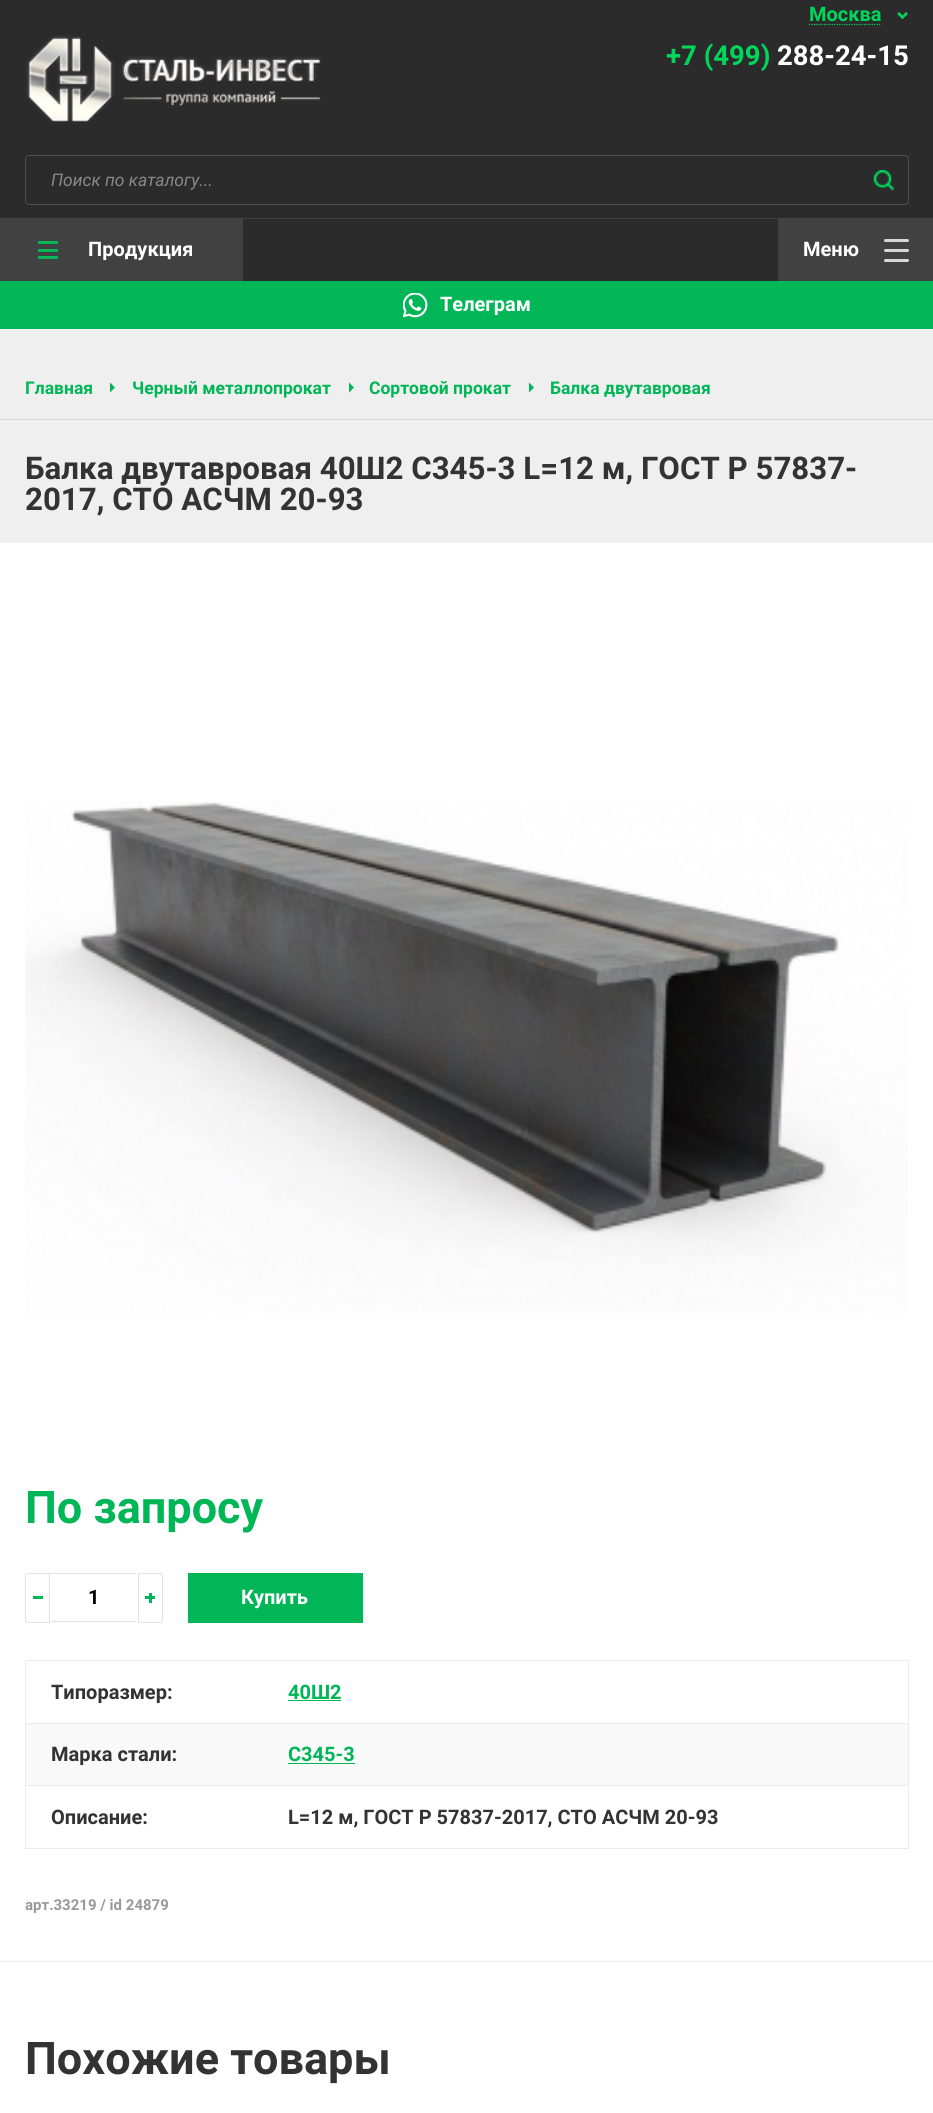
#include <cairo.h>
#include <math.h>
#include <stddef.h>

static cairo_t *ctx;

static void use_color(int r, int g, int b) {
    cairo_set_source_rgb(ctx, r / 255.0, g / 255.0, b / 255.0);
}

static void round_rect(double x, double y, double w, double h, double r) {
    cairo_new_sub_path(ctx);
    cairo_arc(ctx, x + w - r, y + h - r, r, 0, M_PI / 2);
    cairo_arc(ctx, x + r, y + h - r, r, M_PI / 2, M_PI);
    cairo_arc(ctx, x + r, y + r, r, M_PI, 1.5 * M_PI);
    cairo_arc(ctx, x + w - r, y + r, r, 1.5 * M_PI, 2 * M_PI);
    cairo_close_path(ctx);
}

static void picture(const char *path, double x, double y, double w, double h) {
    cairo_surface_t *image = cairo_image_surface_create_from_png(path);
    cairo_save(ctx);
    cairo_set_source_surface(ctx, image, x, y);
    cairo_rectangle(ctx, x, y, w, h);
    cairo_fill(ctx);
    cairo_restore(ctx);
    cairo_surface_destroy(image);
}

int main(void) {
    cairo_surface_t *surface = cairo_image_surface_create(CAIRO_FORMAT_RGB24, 933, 2113);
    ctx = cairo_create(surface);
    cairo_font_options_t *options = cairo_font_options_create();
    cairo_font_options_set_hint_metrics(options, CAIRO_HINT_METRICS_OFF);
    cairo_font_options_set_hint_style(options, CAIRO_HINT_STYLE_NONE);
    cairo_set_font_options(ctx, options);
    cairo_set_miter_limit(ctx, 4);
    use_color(255, 255, 255);
    cairo_paint(ctx);
    use_color(43, 43, 43);
    cairo_rectangle(ctx, 0, 0, 933, 281);
    cairo_fill(ctx);
    use_color(65, 65, 65);
    cairo_rectangle(ctx, 0, 218, 933, 1);
    cairo_fill(ctx);
    cairo_new_path(ctx);
    cairo_move_to(ctx, 809, 24.5);
    cairo_line_to(ctx, 881, 24.5);
    use_color(0, 214, 91);
    cairo_set_line_width(ctx, 1.2);
    cairo_set_dash(ctx, (double[]){1.25, 1.25}, 2, 0);
    cairo_stroke(ctx);
    cairo_select_font_face(ctx, "Roboto", CAIRO_FONT_SLANT_NORMAL, CAIRO_FONT_WEIGHT_BOLD);
    cairo_set_font_size(ctx, 20);
    cairo_move_to(ctx, 809, 21);
    cairo_show_text(ctx, "Москва");
    cairo_new_path(ctx);
    cairo_move_to(ctx, 906, 12);
    cairo_line_to(ctx, 908, 14);
    cairo_line_to(ctx, 902.5, 19);
    cairo_line_to(ctx, 900.5, 17.5);
    cairo_close_path(ctx);
    cairo_fill(ctx);
    cairo_new_path(ctx);
    cairo_move_to(ctx, 899, 12);
    cairo_line_to(ctx, 904.5, 17.5);
    cairo_line_to(ctx, 902.5, 19);
    cairo_line_to(ctx, 897, 14);
    cairo_close_path(ctx);
    cairo_fill(ctx);
    picture("img1.png", 26, 35, 296, 88);
    cairo_set_font_size(ctx, 27.5);
    cairo_move_to(ctx, 666, 65);
    cairo_show_text(ctx, "+7 (499)");
    use_color(255, 255, 255);
    cairo_move_to(ctx, 777, 65);
    cairo_show_text(ctx, "288-24-15");
    round_rect(25.5, 155.5, 883, 49, 3.5);
    use_color(77, 77, 77);
    cairo_set_line_width(ctx, 1);
    cairo_set_dash(ctx, NULL, 0, 0);
    cairo_stroke(ctx);
    cairo_select_font_face(ctx, "Roboto", CAIRO_FONT_SLANT_ITALIC, CAIRO_FONT_WEIGHT_NORMAL);
    cairo_set_font_size(ctx, 17.5);
    use_color(136, 136, 136);
    cairo_move_to(ctx, 51, 186);
    cairo_show_text(ctx, "Поиск по каталогу...");
    picture("img2.png", 873, 170, 22, 21);
    use_color(65, 65, 65);
    cairo_rectangle(ctx, 0, 219, 243, 62);
    cairo_fill(ctx);
    use_color(0, 182, 86);
    cairo_rectangle(ctx, 38, 241, 20, 3);
    cairo_fill(ctx);
    cairo_rectangle(ctx, 38, 256, 20, 3);
    cairo_fill(ctx);
    cairo_select_font_face(ctx, "Roboto", CAIRO_FONT_SLANT_NORMAL, CAIRO_FONT_WEIGHT_BOLD);
    cairo_set_font_size(ctx, 20);
    use_color(255, 255, 255);
    cairo_move_to(ctx, 88, 256);
    cairo_show_text(ctx, "Продукция");
    use_color(0, 182, 86);
    cairo_rectangle(ctx, 38, 249, 20, 3);
    cairo_fill(ctx);
    use_color(65, 65, 65);
    cairo_rectangle(ctx, 778, 219, 155, 62);
    cairo_fill(ctx);
    use_color(255, 255, 255);
    cairo_move_to(ctx, 803, 256);
    cairo_show_text(ctx, "Меню");
    use_color(216, 216, 216);
    round_rect(884, 239, 25, 3, 1.5);
    cairo_fill(ctx);
    round_rect(884, 249, 25, 3, 1.5);
    cairo_fill(ctx);
    round_rect(884, 259, 25, 3, 1.5);
    cairo_fill(ctx);
    use_color(0, 182, 86);
    cairo_rectangle(ctx, 0, 281, 933, 48);
    cairo_fill(ctx);
    picture("img3.png", 403, 293, 25, 25);
    use_color(255, 255, 255);
    cairo_move_to(ctx, 440, 311);
    cairo_show_text(ctx, "Телеграм");
    use_color(239, 239, 239);
    cairo_rectangle(ctx, 0, 329, 933, 214);
    cairo_fill(ctx);
    use_color(215, 215, 215);
    cairo_rectangle(ctx, 0, 419, 933, 1);
    cairo_fill(ctx);
    cairo_set_font_size(ctx, 17.5);
    use_color(0, 182, 86);
    cairo_move_to(ctx, 25, 394);
    cairo_show_text(ctx, "Главная");
    cairo_new_path(ctx);
    cairo_move_to(ctx, 110, 392.5);
    cairo_line_to(ctx, 110, 382.5);
    cairo_line_to(ctx, 115, 387.5);
    cairo_close_path(ctx);
    cairo_fill(ctx);
    cairo_move_to(ctx, 132, 394);
    cairo_show_text(ctx, "Черный металлопрокат");
    cairo_new_path(ctx);
    cairo_move_to(ctx, 349, 392.5);
    cairo_line_to(ctx, 349, 382.5);
    cairo_line_to(ctx, 354, 387.5);
    cairo_close_path(ctx);
    cairo_fill(ctx);
    cairo_move_to(ctx, 369, 394);
    cairo_show_text(ctx, "Сортовой прокат");
    cairo_new_path(ctx);
    cairo_move_to(ctx, 529, 392.5);
    cairo_line_to(ctx, 529, 382.5);
    cairo_line_to(ctx, 534, 387.5);
    cairo_close_path(ctx);
    cairo_fill(ctx);
    cairo_move_to(ctx, 550, 394);
    cairo_show_text(ctx, "Балка двутавровая");
    cairo_set_font_size(ctx, 31.25);
    use_color(51, 51, 51);
    cairo_move_to(ctx, 25, 479);
    cairo_show_text(ctx, "Балка двутавровая 40Ш2 С345-3 L=12 м, ГОСТ Р 57837-");
    cairo_move_to(ctx, 25, 510);
    cairo_show_text(ctx, "2017, СТО АСЧМ 20-93");
    picture("img4.png", 25, 801, 883, 512);
    cairo_set_font_size(ctx, 45);
    use_color(0, 182, 86);
    cairo_move_to(ctx, 25, 1523);
    cairo_show_text(ctx, "По запросу");
    cairo_new_path(ctx);
    cairo_move_to(ctx, 27.5, 1573.5);
    cairo_line_to(ctx, 49.5, 1573.5);
    cairo_line_to(ctx, 49.5, 1622.5);
    cairo_line_to(ctx, 27.5, 1622.5);
    cairo_curve_to(ctx, 26.5, 1622.5, 25.5, 1621.5, 25.5, 1620.5);
    cairo_line_to(ctx, 25.5, 1575.5);
    cairo_curve_to(ctx, 25.5, 1574.5, 26.5, 1573.5, 27.5, 1573.5);
    cairo_close_path(ctx);
    use_color(225, 225, 225);
    cairo_stroke(ctx);
    use_color(0, 182, 86);
    cairo_rectangle(ctx, 33, 1596, 10, 3);
    cairo_fill(ctx);
    use_color(225, 225, 225);
    cairo_rectangle(ctx, 51, 1573, 85, 1);
    cairo_fill(ctx);
    cairo_rectangle(ctx, 51, 1621, 85, 1);
    cairo_fill(ctx);
    cairo_set_font_size(ctx, 20);
    use_color(0, 0, 0);
    cairo_move_to(ctx, 88, 1604);
    cairo_show_text(ctx, "1");
    cairo_new_path(ctx);
    cairo_move_to(ctx, 138.5, 1573.5);
    cairo_line_to(ctx, 160.5, 1573.5);
    cairo_curve_to(ctx, 161.5, 1573.5, 162.5, 1574.5, 162.5, 1575.5);
    cairo_line_to(ctx, 162.5, 1620.5);
    cairo_curve_to(ctx, 162.5, 1621.5, 161.5, 1622.5, 160.5, 1622.5);
    cairo_line_to(ctx, 138.5, 1622.5);
    cairo_close_path(ctx);
    use_color(225, 225, 225);
    cairo_stroke(ctx);
    use_color(0, 182, 86);
    cairo_rectangle(ctx, 149, 1593, 3, 10);
    cairo_fill(ctx);
    cairo_rectangle(ctx, 145, 1596, 10, 3);
    cairo_fill(ctx);
    cairo_rectangle(ctx, 188, 1573, 175, 50);
    cairo_fill(ctx);
    use_color(255, 255, 255);
    cairo_move_to(ctx, 241, 1604);
    cairo_show_text(ctx, "Купить");
    use_color(236, 236, 236);
    cairo_rectangle(ctx, 25, 1660, 884, 1);
    cairo_fill(ctx);
    cairo_rectangle(ctx, 908, 1660, 1, 189);
    cairo_fill(ctx);
    cairo_rectangle(ctx, 25, 1848, 884, 1);
    cairo_fill(ctx);
    cairo_rectangle(ctx, 25, 1660, 1, 189);
    cairo_fill(ctx);
    use_color(51, 51, 51);
    cairo_move_to(ctx, 51, 1699);
    cairo_show_text(ctx, "Типоразмер:");
    use_color(0, 182, 86);
    cairo_move_to(ctx, 288, 1699);
    cairo_show_text(ctx, "40Ш2");
    cairo_rectangle(ctx, 288, 1700, 53, 1);
    cairo_fill(ctx);
    use_color(249, 249, 249);
    cairo_rectangle(ctx, 26, 1724, 882, 61);
    cairo_fill(ctx);
    use_color(51, 51, 51);
    cairo_move_to(ctx, 51, 1761);
    cairo_show_text(ctx, "Марка стали:");
    use_color(236, 236, 236);
    cairo_rectangle(ctx, 25, 1723, 884, 1);
    cairo_fill(ctx);
    use_color(0, 182, 86);
    cairo_move_to(ctx, 288, 1761);
    cairo_show_text(ctx, "С345-3");
    cairo_rectangle(ctx, 288, 1763, 67, 1);
    cairo_fill(ctx);
    use_color(51, 51, 51);
    cairo_move_to(ctx, 51, 1824);
    cairo_show_text(ctx, "Описание:");
    use_color(236, 236, 236);
    cairo_rectangle(ctx, 25, 1785, 884, 1);
    cairo_fill(ctx);
    use_color(51, 51, 51);
    cairo_move_to(ctx, 288, 1824);
    cairo_show_text(ctx, "L=12 м, ГОСТ Р 57837-2017, СТО АСЧМ 20-93");
    cairo_set_font_size(ctx, 15);
    use_color(153, 153, 153);
    cairo_move_to(ctx, 25, 1910);
    cairo_show_text(ctx, "арт.33219 / id 24879");
    use_color(236, 236, 236);
    cairo_rectangle(ctx, 0, 1961, 933, 1);
    cairo_fill(ctx);
    cairo_set_font_size(ctx, 45);
    use_color(51, 51, 51);
    cairo_move_to(ctx, 25, 2074);
    cairo_show_text(ctx, "Похожие товары");
    cairo_surface_write_to_png(surface, "result.png");
    cairo_font_options_destroy(options);
    cairo_destroy(ctx);
    cairo_surface_destroy(surface);
    return 0;
}
